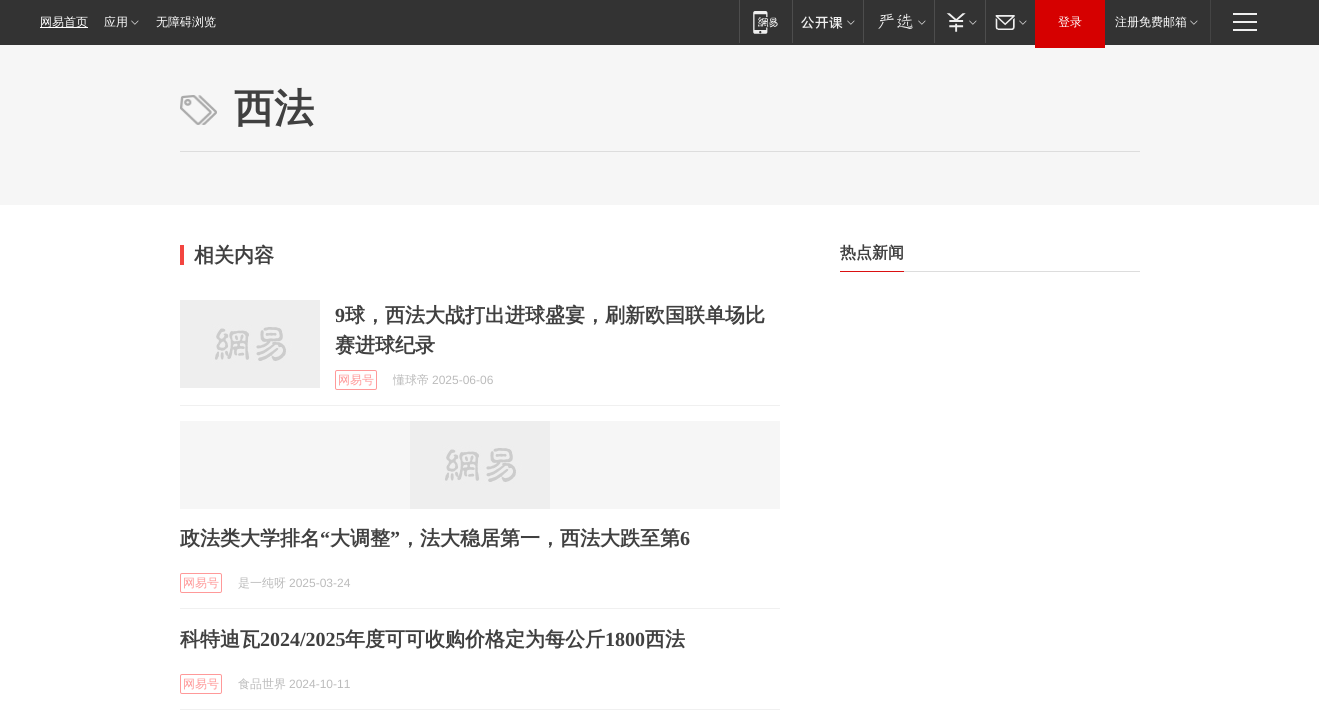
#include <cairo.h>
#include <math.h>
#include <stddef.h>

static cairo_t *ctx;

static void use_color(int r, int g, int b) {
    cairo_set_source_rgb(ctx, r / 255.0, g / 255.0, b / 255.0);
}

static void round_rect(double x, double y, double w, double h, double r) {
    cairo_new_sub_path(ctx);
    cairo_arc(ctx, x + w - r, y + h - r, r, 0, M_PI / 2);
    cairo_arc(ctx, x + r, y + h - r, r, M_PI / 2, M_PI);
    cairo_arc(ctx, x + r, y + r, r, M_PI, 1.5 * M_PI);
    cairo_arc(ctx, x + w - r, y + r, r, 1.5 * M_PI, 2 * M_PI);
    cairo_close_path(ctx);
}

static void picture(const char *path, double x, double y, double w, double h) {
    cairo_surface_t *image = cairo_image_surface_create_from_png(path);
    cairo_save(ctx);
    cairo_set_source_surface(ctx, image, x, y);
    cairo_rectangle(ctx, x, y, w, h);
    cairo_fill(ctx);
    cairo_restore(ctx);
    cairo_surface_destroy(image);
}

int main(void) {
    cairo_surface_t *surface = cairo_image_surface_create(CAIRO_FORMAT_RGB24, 1319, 713);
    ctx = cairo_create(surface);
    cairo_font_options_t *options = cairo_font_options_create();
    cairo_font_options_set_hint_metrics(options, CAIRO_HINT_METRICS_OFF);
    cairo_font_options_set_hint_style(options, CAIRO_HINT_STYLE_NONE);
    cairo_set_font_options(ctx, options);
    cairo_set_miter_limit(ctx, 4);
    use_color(255, 255, 255);
    cairo_paint(ctx);
    use_color(51, 51, 51);
    cairo_rectangle(ctx, 0, 0, 1319, 45);
    cairo_fill(ctx);
    use_color(255, 255, 255);
    cairo_rectangle(ctx, 40, 27, 48, 1);
    cairo_fill(ctx);
    cairo_select_font_face(ctx, "WenQuanYi Zen Hei Medium", CAIRO_FONT_SLANT_NORMAL, CAIRO_FONT_WEIGHT_NORMAL);
    cairo_set_font_size(ctx, 12);
    cairo_move_to(ctx, 40, 26);
    cairo_show_text(ctx, "网易首页");
    cairo_move_to(ctx, 104, 26);
    cairo_show_text(ctx, "应用");
    picture("img1.png", 131, 20, 8, 5);
    cairo_move_to(ctx, 156, 26);
    cairo_show_text(ctx, "无障碍浏览");
    use_color(77, 77, 77);
    cairo_rectangle(ctx, 739, 0, 1, 43);
    cairo_fill(ctx);
    picture("img2.png", 753, 11, 25, 23);
    cairo_rectangle(ctx, 792, 0, 1, 43);
    cairo_fill(ctx);
    picture("img3.png", 801, 16, 42, 13);
    picture("img1.png", 847, 20, 8, 5);
    cairo_rectangle(ctx, 863, 0, 1, 43);
    cairo_fill(ctx);
    picture("img4.png", 878, 13, 35, 16);
    picture("img1.png", 918, 20, 8, 5);
    cairo_rectangle(ctx, 934, 0, 1, 43);
    cairo_fill(ctx);
    picture("img5.png", 946, 13, 20, 19);
    picture("img1.png", 969, 20, 8, 5);
    cairo_rectangle(ctx, 985, 0, 1, 43);
    cairo_fill(ctx);
    picture("img6.png", 995, 15, 20, 15);
    picture("img1.png", 1019, 20, 8, 5);
    use_color(246, 246, 246);
    cairo_rectangle(ctx, 0, 45, 1319, 160);
    cairo_fill(ctx);
    use_color(214, 0, 0);
    cairo_rectangle(ctx, 1035, 0, 70, 48);
    cairo_fill(ctx);
    use_color(255, 255, 255);
    cairo_move_to(ctx, 1058, 26);
    cairo_show_text(ctx, "登录");
    cairo_move_to(ctx, 1115, 26);
    cairo_show_text(ctx, "注册免费邮箱");
    picture("img1.png", 1190, 20, 8, 5);
    use_color(68, 68, 68);
    cairo_rectangle(ctx, 1210, 0, 1, 43);
    cairo_fill(ctx);
    use_color(239, 239, 239);
    cairo_rectangle(ctx, 1233, 13, 24, 2);
    cairo_fill(ctx);
    cairo_rectangle(ctx, 1233, 21, 24, 2);
    cairo_fill(ctx);
    cairo_rectangle(ctx, 1233, 29, 24, 2);
    cairo_fill(ctx);
    picture("img7.png", 180, 95, 37, 30);
    use_color(221, 221, 221);
    cairo_rectangle(ctx, 180, 151, 960, 1);
    cairo_fill(ctx);
    cairo_select_font_face(ctx, "WenQuanYi Zen Hei", CAIRO_FONT_SLANT_NORMAL, CAIRO_FONT_WEIGHT_BOLD);
    cairo_set_font_size(ctx, 40);
    use_color(64, 64, 64);
    cairo_move_to(ctx, 234, 122);
    cairo_show_text(ctx, "西法");
    use_color(243, 69, 64);
    cairo_rectangle(ctx, 180, 245, 4, 20);
    cairo_fill(ctx);
    cairo_set_font_size(ctx, 20);
    use_color(64, 64, 64);
    cairo_move_to(ctx, 194, 262);
    cairo_show_text(ctx, "相关内容");
    use_color(240, 240, 240);
    cairo_rectangle(ctx, 180, 405, 600, 1);
    cairo_fill(ctx);
    picture("img8.png", 180, 300, 140, 88);
    cairo_select_font_face(ctx, "Liberation Serif", CAIRO_FONT_SLANT_NORMAL, CAIRO_FONT_WEIGHT_BOLD);
    use_color(64, 64, 64);
    cairo_move_to(ctx, 335, 322);
    cairo_show_text(ctx, "9");
    cairo_select_font_face(ctx, "WenQuanYi Zen Hei", CAIRO_FONT_SLANT_NORMAL, CAIRO_FONT_WEIGHT_BOLD);
    cairo_move_to(ctx, 345, 322);
    cairo_show_text(ctx, "球，西法大战打出进球盛宴，刷新欧国联单场比");
    cairo_move_to(ctx, 335, 352);
    cairo_show_text(ctx, "赛进球纪录");
    round_rect(335.5, 370.5, 41, 19, 1.5);
    use_color(255, 153, 153);
    cairo_set_line_width(ctx, 1);
    cairo_stroke(ctx);
    cairo_select_font_face(ctx, "WenQuanYi Zen Hei Medium", CAIRO_FONT_SLANT_NORMAL, CAIRO_FONT_WEIGHT_NORMAL);
    cairo_set_font_size(ctx, 12);
    cairo_move_to(ctx, 338, 384);
    cairo_show_text(ctx, "网易号");
    use_color(187, 187, 187);
    cairo_move_to(ctx, 393, 384);
    cairo_show_text(ctx, "懂球帝");
    cairo_select_font_face(ctx, "Liberation Sans", CAIRO_FONT_SLANT_NORMAL, CAIRO_FONT_WEIGHT_NORMAL);
    cairo_move_to(ctx, 432, 384);
    cairo_show_text(ctx, "2025-06-06");
    use_color(240, 240, 240);
    cairo_rectangle(ctx, 180, 608, 600, 1);
    cairo_fill(ctx);
    use_color(246, 246, 246);
    cairo_rectangle(ctx, 180, 421, 600, 88);
    cairo_fill(ctx);
    picture("img8.png", 410, 421, 140, 88);
    cairo_select_font_face(ctx, "WenQuanYi Zen Hei", CAIRO_FONT_SLANT_NORMAL, CAIRO_FONT_WEIGHT_BOLD);
    cairo_set_font_size(ctx, 20);
    use_color(64, 64, 64);
    cairo_move_to(ctx, 180, 545);
    cairo_show_text(ctx, "政法类大学排名");
    cairo_select_font_face(ctx, "Liberation Serif", CAIRO_FONT_SLANT_NORMAL, CAIRO_FONT_WEIGHT_BOLD);
    cairo_move_to(ctx, 320, 545);
    cairo_show_text(ctx, "“");
    cairo_select_font_face(ctx, "WenQuanYi Zen Hei", CAIRO_FONT_SLANT_NORMAL, CAIRO_FONT_WEIGHT_BOLD);
    cairo_move_to(ctx, 330, 545);
    cairo_show_text(ctx, "大调整");
    cairo_select_font_face(ctx, "Liberation Serif", CAIRO_FONT_SLANT_NORMAL, CAIRO_FONT_WEIGHT_BOLD);
    cairo_move_to(ctx, 390, 545);
    cairo_show_text(ctx, "”");
    cairo_select_font_face(ctx, "WenQuanYi Zen Hei", CAIRO_FONT_SLANT_NORMAL, CAIRO_FONT_WEIGHT_BOLD);
    cairo_move_to(ctx, 400, 545);
    cairo_show_text(ctx, "，法大稳居第一，西法大跌至第");
    cairo_select_font_face(ctx, "Liberation Serif", CAIRO_FONT_SLANT_NORMAL, CAIRO_FONT_WEIGHT_BOLD);
    cairo_move_to(ctx, 680, 545);
    cairo_show_text(ctx, "6");
    round_rect(180.5, 573.5, 41, 19, 1.5);
    use_color(255, 153, 153);
    cairo_stroke(ctx);
    cairo_select_font_face(ctx, "WenQuanYi Zen Hei Medium", CAIRO_FONT_SLANT_NORMAL, CAIRO_FONT_WEIGHT_NORMAL);
    cairo_set_font_size(ctx, 12);
    cairo_move_to(ctx, 183, 587);
    cairo_show_text(ctx, "网易号");
    use_color(187, 187, 187);
    cairo_move_to(ctx, 238, 587);
    cairo_show_text(ctx, "是一纯呀");
    cairo_select_font_face(ctx, "Liberation Sans", CAIRO_FONT_SLANT_NORMAL, CAIRO_FONT_WEIGHT_NORMAL);
    cairo_move_to(ctx, 289, 587);
    cairo_show_text(ctx, "2025-03-24");
    use_color(240, 240, 240);
    cairo_rectangle(ctx, 180, 709, 600, 1);
    cairo_fill(ctx);
    cairo_select_font_face(ctx, "WenQuanYi Zen Hei", CAIRO_FONT_SLANT_NORMAL, CAIRO_FONT_WEIGHT_BOLD);
    cairo_set_font_size(ctx, 20);
    use_color(64, 64, 64);
    cairo_move_to(ctx, 180, 646);
    cairo_show_text(ctx, "科特迪瓦");
    cairo_select_font_face(ctx, "Liberation Serif", CAIRO_FONT_SLANT_NORMAL, CAIRO_FONT_WEIGHT_BOLD);
    cairo_move_to(ctx, 260, 646);
    cairo_show_text(ctx, "2024/2025");
    cairo_select_font_face(ctx, "WenQuanYi Zen Hei", CAIRO_FONT_SLANT_NORMAL, CAIRO_FONT_WEIGHT_BOLD);
    cairo_move_to(ctx, 345, 646);
    cairo_show_text(ctx, "年度可可收购价格定为每公斤");
    cairo_select_font_face(ctx, "Liberation Serif", CAIRO_FONT_SLANT_NORMAL, CAIRO_FONT_WEIGHT_BOLD);
    cairo_move_to(ctx, 605, 646);
    cairo_show_text(ctx, "1800");
    cairo_select_font_face(ctx, "WenQuanYi Zen Hei", CAIRO_FONT_SLANT_NORMAL, CAIRO_FONT_WEIGHT_BOLD);
    cairo_move_to(ctx, 645, 646);
    cairo_show_text(ctx, "西法");
    round_rect(180.5, 674.5, 41, 19, 1.5);
    use_color(255, 153, 153);
    cairo_stroke(ctx);
    cairo_select_font_face(ctx, "WenQuanYi Zen Hei Medium", CAIRO_FONT_SLANT_NORMAL, CAIRO_FONT_WEIGHT_NORMAL);
    cairo_set_font_size(ctx, 12);
    cairo_move_to(ctx, 183, 688);
    cairo_show_text(ctx, "网易号");
    use_color(187, 187, 187);
    cairo_move_to(ctx, 238, 688);
    cairo_show_text(ctx, "食品世界");
    cairo_select_font_face(ctx, "Liberation Sans", CAIRO_FONT_SLANT_NORMAL, CAIRO_FONT_WEIGHT_NORMAL);
    cairo_move_to(ctx, 289, 688);
    cairo_show_text(ctx, "2024-10-11");
    use_color(221, 221, 221);
    cairo_rectangle(ctx, 904, 271, 236, 1);
    cairo_fill(ctx);
    cairo_select_font_face(ctx, "WenQuanYi Zen Hei", CAIRO_FONT_SLANT_NORMAL, CAIRO_FONT_WEIGHT_BOLD);
    cairo_set_font_size(ctx, 16);
    use_color(64, 64, 64);
    cairo_move_to(ctx, 840, 258);
    cairo_show_text(ctx, "热点新闻");
    use_color(219, 16, 17);
    cairo_rectangle(ctx, 840, 271, 64, 1);
    cairo_fill(ctx);
    cairo_surface_write_to_png(surface, "result.png");
    cairo_font_options_destroy(options);
    cairo_destroy(ctx);
    cairo_surface_destroy(surface);
    return 0;
}
